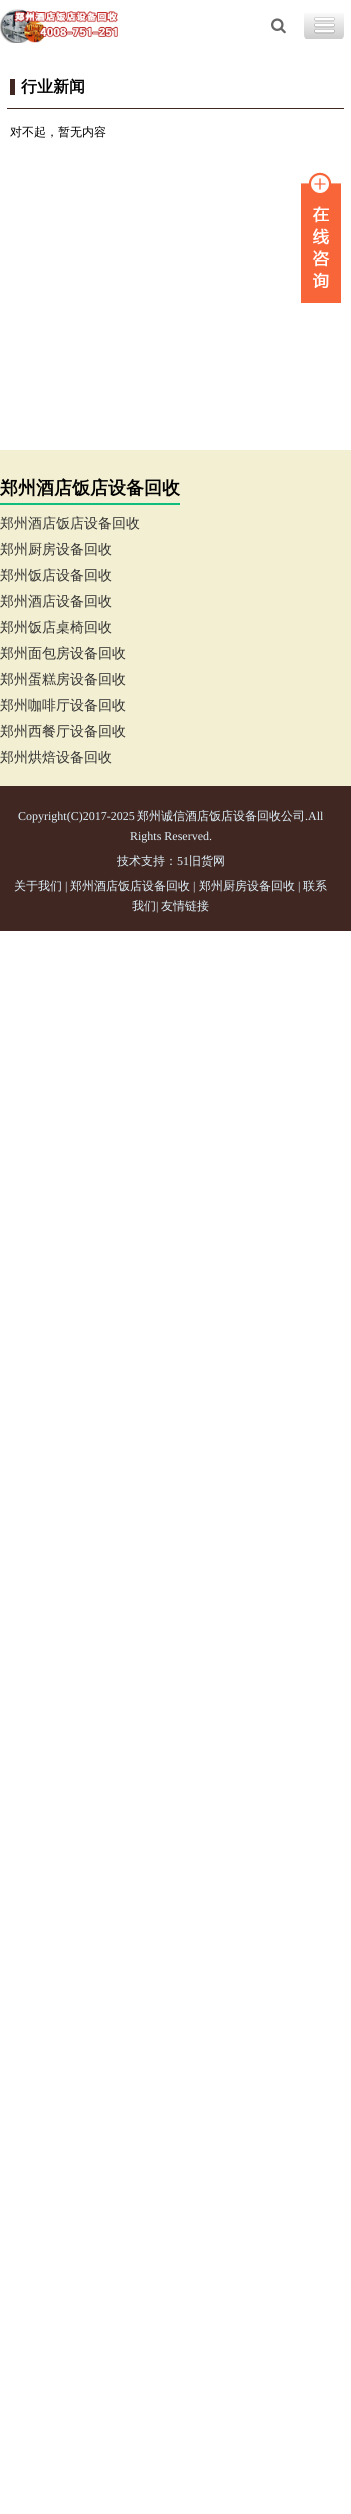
#include <cairo.h>
#include <math.h>
#include <stddef.h>

static cairo_t *ctx;

static void use_color(int r, int g, int b) {
    cairo_set_source_rgb(ctx, r / 255.0, g / 255.0, b / 255.0);
}

static void picture(const char *path, double x, double y, double w, double h) {
    cairo_surface_t *image = cairo_image_surface_create_from_png(path);
    cairo_save(ctx);
    cairo_set_source_surface(ctx, image, x, y);
    cairo_rectangle(ctx, x, y, w, h);
    cairo_fill(ctx);
    cairo_restore(ctx);
    cairo_surface_destroy(image);
}

int main(void) {
    cairo_surface_t *surface = cairo_image_surface_create(CAIRO_FORMAT_RGB24, 351, 2514);
    ctx = cairo_create(surface);
    cairo_font_options_t *options = cairo_font_options_create();
    cairo_font_options_set_hint_metrics(options, CAIRO_HINT_METRICS_OFF);
    cairo_font_options_set_hint_style(options, CAIRO_HINT_STYLE_NONE);
    cairo_set_font_options(ctx, options);
    cairo_set_miter_limit(ctx, 4);
    use_color(255, 255, 255);
    cairo_paint(ctx);
    picture("img1.png", 0, 9, 118, 34);
    picture("img2.png", 271, 18, 15, 16);
    picture("img3.png", 304, 13, 40, 26);
    use_color(64, 39, 34);
    cairo_rectangle(ctx, 7, 108, 337, 1);
    cairo_fill(ctx);
    cairo_rectangle(ctx, 10, 79, 5, 16);
    cairo_fill(ctx);
    cairo_select_font_face(ctx, "WenQuanYi Zen Hei", CAIRO_FONT_SLANT_NORMAL, CAIRO_FONT_WEIGHT_BOLD);
    cairo_set_font_size(ctx, 16);
    use_color(0, 0, 0);
    cairo_move_to(ctx, 21, 92);
    cairo_show_text(ctx, "行业新闻");
    cairo_select_font_face(ctx, "WenQuanYi Zen Hei Medium", CAIRO_FONT_SLANT_NORMAL, CAIRO_FONT_WEIGHT_NORMAL);
    cairo_set_font_size(ctx, 12);
    cairo_move_to(ctx, 10, 136);
    cairo_show_text(ctx, "对不起，暂无内容");
    use_color(243, 239, 210);
    cairo_rectangle(ctx, 0, 450, 351, 336);
    cairo_fill(ctx);
    cairo_select_font_face(ctx, "WenQuanYi Zen Hei", CAIRO_FONT_SLANT_NORMAL, CAIRO_FONT_WEIGHT_BOLD);
    cairo_set_font_size(ctx, 18);
    use_color(0, 0, 0);
    cairo_move_to(ctx, 0, 494);
    cairo_show_text(ctx, "郑州酒店饭店设备回收");
    use_color(15, 190, 124);
    cairo_rectangle(ctx, 0, 503, 180, 2);
    cairo_fill(ctx);
    cairo_select_font_face(ctx, "WenQuanYi Zen Hei Medium", CAIRO_FONT_SLANT_NORMAL, CAIRO_FONT_WEIGHT_NORMAL);
    cairo_set_font_size(ctx, 14);
    use_color(51, 51, 51);
    cairo_move_to(ctx, 0, 528);
    cairo_show_text(ctx, "郑州酒店饭店设备回收");
    cairo_move_to(ctx, 0, 554);
    cairo_show_text(ctx, "郑州厨房设备回收");
    cairo_move_to(ctx, 0, 580);
    cairo_show_text(ctx, "郑州饭店设备回收");
    cairo_move_to(ctx, 0, 606);
    cairo_show_text(ctx, "郑州酒店设备回收");
    cairo_move_to(ctx, 0, 632);
    cairo_show_text(ctx, "郑州饭店桌椅回收");
    cairo_move_to(ctx, 0, 658);
    cairo_show_text(ctx, "郑州面包房设备回收");
    cairo_move_to(ctx, 0, 684);
    cairo_show_text(ctx, "郑州蛋糕房设备回收");
    cairo_move_to(ctx, 0, 710);
    cairo_show_text(ctx, "郑州咖啡厅设备回收");
    cairo_move_to(ctx, 0, 736);
    cairo_show_text(ctx, "郑州西餐厅设备回收");
    cairo_move_to(ctx, 0, 762);
    cairo_show_text(ctx, "郑州烘焙设备回收");
    use_color(64, 39, 34);
    cairo_rectangle(ctx, 0, 786, 351, 145);
    cairo_fill(ctx);
    cairo_select_font_face(ctx, "Liberation Serif", CAIRO_FONT_SLANT_NORMAL, CAIRO_FONT_WEIGHT_NORMAL);
    cairo_set_font_size(ctx, 12);
    use_color(222, 240, 250);
    cairo_move_to(ctx, 18, 820);
    cairo_show_text(ctx, "Copyright(C)2017-2025");
    cairo_select_font_face(ctx, "WenQuanYi Zen Hei Medium", CAIRO_FONT_SLANT_NORMAL, CAIRO_FONT_WEIGHT_NORMAL);
    cairo_move_to(ctx, 137, 820);
    cairo_show_text(ctx, "郑州诚信酒店饭店设备回收公司");
    cairo_select_font_face(ctx, "Liberation Serif", CAIRO_FONT_SLANT_NORMAL, CAIRO_FONT_WEIGHT_NORMAL);
    cairo_move_to(ctx, 305, 820);
    cairo_show_text(ctx, ".All");
    cairo_move_to(ctx, 130, 840);
    cairo_show_text(ctx, "Rights Reserved.");
    cairo_select_font_face(ctx, "WenQuanYi Zen Hei Medium", CAIRO_FONT_SLANT_NORMAL, CAIRO_FONT_WEIGHT_NORMAL);
    cairo_move_to(ctx, 117, 865);
    cairo_show_text(ctx, "技术支持：");
    cairo_select_font_face(ctx, "Liberation Serif", CAIRO_FONT_SLANT_NORMAL, CAIRO_FONT_WEIGHT_NORMAL);
    cairo_move_to(ctx, 177, 865);
    cairo_show_text(ctx, "51");
    cairo_select_font_face(ctx, "WenQuanYi Zen Hei Medium", CAIRO_FONT_SLANT_NORMAL, CAIRO_FONT_WEIGHT_NORMAL);
    cairo_move_to(ctx, 189, 865);
    cairo_show_text(ctx, "旧货网");
    cairo_move_to(ctx, 14, 890);
    cairo_show_text(ctx, "关于我们");
    cairo_select_font_face(ctx, "Liberation Serif", CAIRO_FONT_SLANT_NORMAL, CAIRO_FONT_WEIGHT_NORMAL);
    cairo_move_to(ctx, 65, 890);
    cairo_show_text(ctx, "|");
    cairo_select_font_face(ctx, "WenQuanYi Zen Hei Medium", CAIRO_FONT_SLANT_NORMAL, CAIRO_FONT_WEIGHT_NORMAL);
    cairo_move_to(ctx, 70, 890);
    cairo_show_text(ctx, "郑州酒店饭店设备回收");
    cairo_select_font_face(ctx, "Liberation Serif", CAIRO_FONT_SLANT_NORMAL, CAIRO_FONT_WEIGHT_NORMAL);
    cairo_move_to(ctx, 193, 890);
    cairo_show_text(ctx, "|");
    cairo_select_font_face(ctx, "WenQuanYi Zen Hei Medium", CAIRO_FONT_SLANT_NORMAL, CAIRO_FONT_WEIGHT_NORMAL);
    cairo_move_to(ctx, 199, 890);
    cairo_show_text(ctx, "郑州厨房设备回收");
    cairo_select_font_face(ctx, "Liberation Serif", CAIRO_FONT_SLANT_NORMAL, CAIRO_FONT_WEIGHT_NORMAL);
    cairo_move_to(ctx, 298, 890);
    cairo_show_text(ctx, "|");
    cairo_select_font_face(ctx, "WenQuanYi Zen Hei Medium", CAIRO_FONT_SLANT_NORMAL, CAIRO_FONT_WEIGHT_NORMAL);
    cairo_move_to(ctx, 303, 890);
    cairo_show_text(ctx, "联系");
    cairo_move_to(ctx, 132, 910);
    cairo_show_text(ctx, "我们");
    cairo_select_font_face(ctx, "Liberation Serif", CAIRO_FONT_SLANT_NORMAL, CAIRO_FONT_WEIGHT_NORMAL);
    cairo_move_to(ctx, 156, 910);
    cairo_show_text(ctx, "|");
    cairo_select_font_face(ctx, "WenQuanYi Zen Hei Medium", CAIRO_FONT_SLANT_NORMAL, CAIRO_FONT_WEIGHT_NORMAL);
    cairo_move_to(ctx, 161, 910);
    cairo_show_text(ctx, "友情链接");
    picture("img4.png", 301, 172, 40, 131);
    cairo_surface_write_to_png(surface, "result.png");
    cairo_font_options_destroy(options);
    cairo_destroy(ctx);
    cairo_surface_destroy(surface);
    return 0;
}
